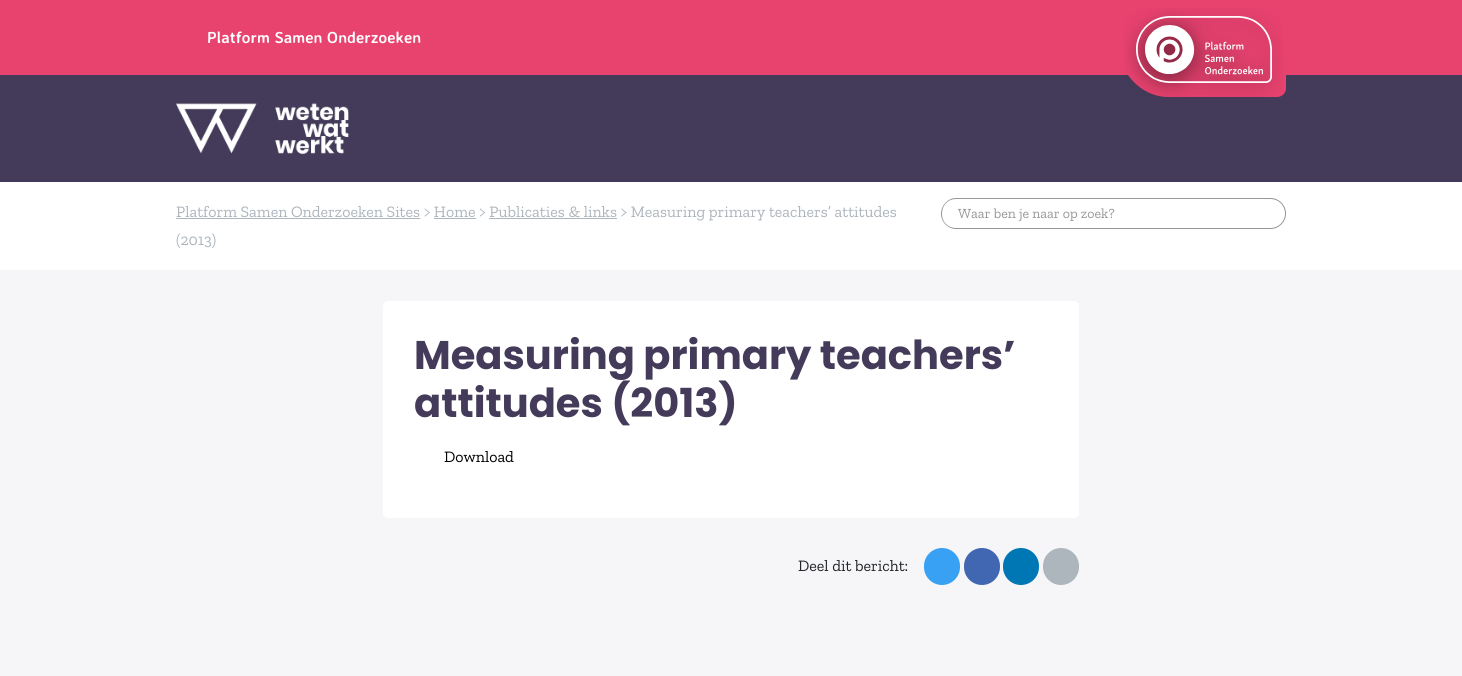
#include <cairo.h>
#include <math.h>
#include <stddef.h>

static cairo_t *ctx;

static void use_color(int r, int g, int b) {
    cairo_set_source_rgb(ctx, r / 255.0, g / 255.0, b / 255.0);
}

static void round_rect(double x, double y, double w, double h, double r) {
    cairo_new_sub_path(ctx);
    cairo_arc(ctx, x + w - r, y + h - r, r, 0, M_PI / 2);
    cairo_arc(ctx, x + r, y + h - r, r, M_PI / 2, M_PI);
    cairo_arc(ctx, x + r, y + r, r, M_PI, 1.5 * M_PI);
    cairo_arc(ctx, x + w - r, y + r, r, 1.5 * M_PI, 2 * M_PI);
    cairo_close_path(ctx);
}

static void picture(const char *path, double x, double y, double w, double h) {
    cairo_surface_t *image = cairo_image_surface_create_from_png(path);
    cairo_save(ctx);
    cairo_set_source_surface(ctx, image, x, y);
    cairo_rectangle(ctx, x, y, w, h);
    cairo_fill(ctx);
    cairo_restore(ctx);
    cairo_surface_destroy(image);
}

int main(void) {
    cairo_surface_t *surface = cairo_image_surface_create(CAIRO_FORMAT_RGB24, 1462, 676);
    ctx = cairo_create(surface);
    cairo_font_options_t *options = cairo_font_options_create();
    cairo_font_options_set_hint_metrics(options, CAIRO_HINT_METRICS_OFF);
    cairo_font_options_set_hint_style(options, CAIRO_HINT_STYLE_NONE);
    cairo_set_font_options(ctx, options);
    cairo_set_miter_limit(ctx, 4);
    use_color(246, 246, 248);
    cairo_paint(ctx);
    use_color(67, 59, 89);
    cairo_rectangle(ctx, 0, 75, 1462, 107);
    cairo_fill(ctx);
    use_color(232, 66, 111);
    cairo_rectangle(ctx, 0, 0, 1462, 75);
    cairo_fill(ctx);
    cairo_select_font_face(ctx, "Averia Sans Libre", CAIRO_FONT_SLANT_NORMAL, CAIRO_FONT_WEIGHT_BOLD);
    cairo_set_font_size(ctx, 16);
    use_color(255, 255, 255);
    cairo_move_to(ctx, 207, 43);
    cairo_show_text(ctx, "Platform Samen Onderzoeken");
    use_color(232, 66, 111);
    cairo_new_path(ctx);
    cairo_move_to(ctx, 1286, 0);
    cairo_line_to(ctx, 1286, 88);
    cairo_curve_to(ctx, 1286, 93, 1282, 97, 1277, 97);
    cairo_line_to(ctx, 1168, 97);
    cairo_curve_to(ctx, 1152, 97, 1137, 88, 1128, 75);
    cairo_line_to(ctx, 1128, 0);
    cairo_close_path(ctx);
    cairo_fill(ctx);
    picture("img1.png", 1124, 8, 159, 89);
    picture("img2.png", 176, 103, 173, 52);
    use_color(255, 255, 255);
    cairo_rectangle(ctx, 0, 182, 1462, 88);
    cairo_fill(ctx);
    use_color(173, 181, 189);
    cairo_rectangle(ctx, 176, 218, 244, 1);
    cairo_fill(ctx);
    cairo_select_font_face(ctx, "Zilla Slab", CAIRO_FONT_SLANT_NORMAL, CAIRO_FONT_WEIGHT_NORMAL);
    cairo_move_to(ctx, 176, 217);
    cairo_show_text(ctx, "Platform Samen Onderzoeken Sites > Home > Publicaties & links > Measuring primary teachers’ attitudes");
    cairo_rectangle(ctx, 434, 218, 42, 1);
    cairo_fill(ctx);
    cairo_rectangle(ctx, 489, 218, 128, 1);
    cairo_fill(ctx);
    cairo_move_to(ctx, 176, 245);
    cairo_show_text(ctx, "(2013)");
    use_color(151, 151, 151);
    cairo_set_fill_rule(ctx, CAIRO_FILL_RULE_EVEN_ODD);
    cairo_new_path(ctx);
    cairo_move_to(ctx, 1248, 198);
    cairo_line_to(ctx, 1270.5, 198);
    cairo_curve_to(ctx, 1279, 198, 1286, 205, 1286, 213.5);
    cairo_curve_to(ctx, 1286, 222, 1279, 229, 1270.5, 229);
    cairo_line_to(ctx, 1248, 229);
    cairo_close_path(ctx);
    cairo_move_to(ctx, 1248, 199);
    cairo_line_to(ctx, 1270.5, 199);
    cairo_curve_to(ctx, 1278.5, 199, 1285, 205.5, 1285, 213.5);
    cairo_curve_to(ctx, 1285, 221.5, 1278.5, 228, 1270.5, 228);
    cairo_line_to(ctx, 1248, 228);
    cairo_close_path(ctx);
    cairo_fill(ctx);
    cairo_new_path(ctx);
    cairo_move_to(ctx, 956, 198);
    cairo_line_to(ctx, 1249, 198);
    cairo_line_to(ctx, 1249, 229);
    cairo_line_to(ctx, 956, 229);
    cairo_curve_to(ctx, 948, 229, 941, 222, 941, 214);
    cairo_curve_to(ctx, 941, 205, 948, 198, 956, 198);
    cairo_close_path(ctx);
    cairo_move_to(ctx, 956, 199);
    cairo_line_to(ctx, 1249, 199);
    cairo_line_to(ctx, 1249, 228);
    cairo_line_to(ctx, 956, 228);
    cairo_curve_to(ctx, 948, 228, 942, 222, 942, 214);
    cairo_curve_to(ctx, 942, 205, 948, 199, 956, 199);
    cairo_close_path(ctx);
    cairo_fill(ctx);
    cairo_set_font_size(ctx, 14);
    cairo_move_to(ctx, 958, 218);
    cairo_show_text(ctx, "Waar ben je naar op zoek?");
    use_color(255, 255, 255);
    round_rect(383, 301, 696, 217, 5);
    cairo_fill(ctx);
    cairo_select_font_face(ctx, "Poppins", CAIRO_FONT_SLANT_NORMAL, CAIRO_FONT_WEIGHT_BOLD);
    cairo_set_font_size(ctx, 40);
    use_color(67, 59, 89);
    cairo_move_to(ctx, 414, 369);
    cairo_show_text(ctx, "Measuring primary teachers’");
    cairo_move_to(ctx, 414, 417);
    cairo_show_text(ctx, "attitudes (2013)");
    cairo_select_font_face(ctx, "Zilla Slab", CAIRO_FONT_SLANT_NORMAL, CAIRO_FONT_WEIGHT_NORMAL);
    cairo_set_font_size(ctx, 16);
    use_color(0, 0, 0);
    cairo_move_to(ctx, 444, 462);
    cairo_show_text(ctx, "Download");
    use_color(33, 37, 41);
    cairo_move_to(ctx, 798, 571);
    cairo_show_text(ctx, "Deel dit bericht:");
    use_color(56, 161, 243);
    round_rect(924, 548, 36, 37, 18);
    cairo_fill(ctx);
    use_color(66, 103, 178);
    round_rect(964, 548, 36, 37, 18);
    cairo_fill(ctx);
    use_color(0, 119, 181);
    round_rect(1003, 548, 36, 37, 18);
    cairo_fill(ctx);
    use_color(173, 181, 189);
    round_rect(1043, 548, 36, 37, 18);
    cairo_fill(ctx);
    cairo_surface_write_to_png(surface, "result.png");
    cairo_font_options_destroy(options);
    cairo_destroy(ctx);
    cairo_surface_destroy(surface);
    return 0;
}
